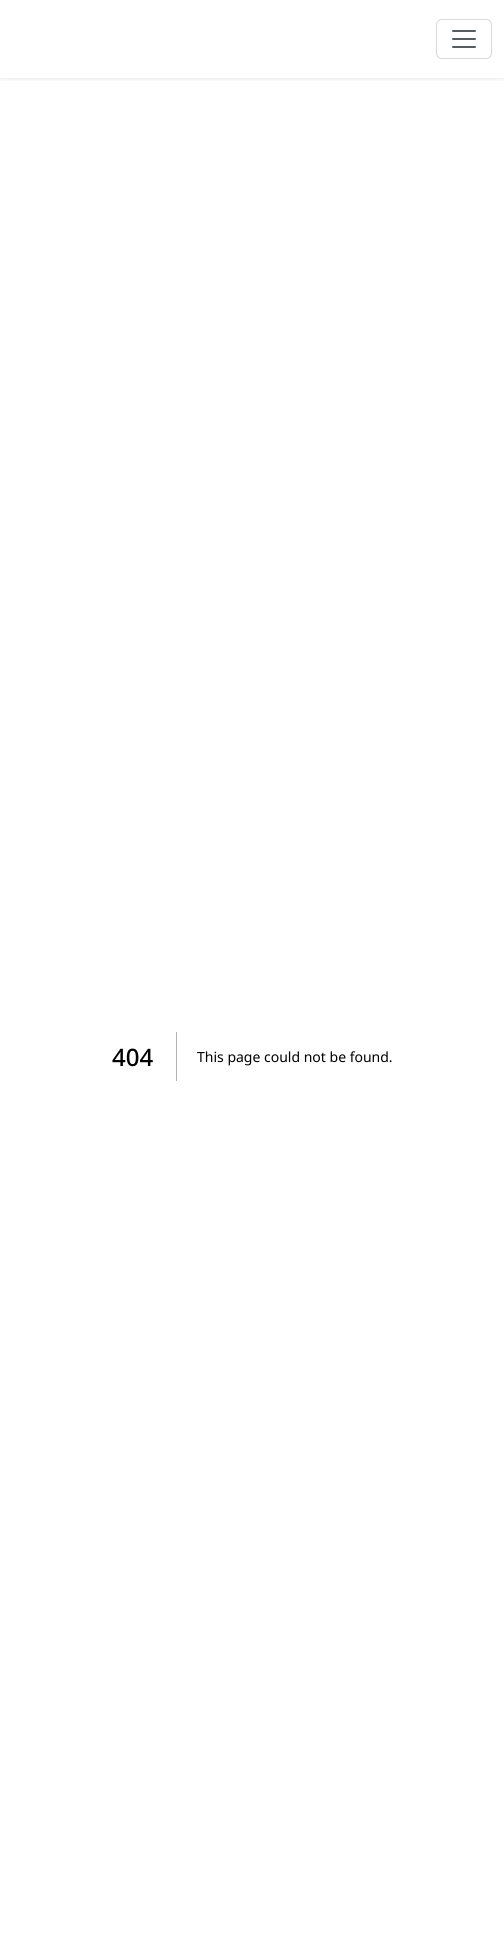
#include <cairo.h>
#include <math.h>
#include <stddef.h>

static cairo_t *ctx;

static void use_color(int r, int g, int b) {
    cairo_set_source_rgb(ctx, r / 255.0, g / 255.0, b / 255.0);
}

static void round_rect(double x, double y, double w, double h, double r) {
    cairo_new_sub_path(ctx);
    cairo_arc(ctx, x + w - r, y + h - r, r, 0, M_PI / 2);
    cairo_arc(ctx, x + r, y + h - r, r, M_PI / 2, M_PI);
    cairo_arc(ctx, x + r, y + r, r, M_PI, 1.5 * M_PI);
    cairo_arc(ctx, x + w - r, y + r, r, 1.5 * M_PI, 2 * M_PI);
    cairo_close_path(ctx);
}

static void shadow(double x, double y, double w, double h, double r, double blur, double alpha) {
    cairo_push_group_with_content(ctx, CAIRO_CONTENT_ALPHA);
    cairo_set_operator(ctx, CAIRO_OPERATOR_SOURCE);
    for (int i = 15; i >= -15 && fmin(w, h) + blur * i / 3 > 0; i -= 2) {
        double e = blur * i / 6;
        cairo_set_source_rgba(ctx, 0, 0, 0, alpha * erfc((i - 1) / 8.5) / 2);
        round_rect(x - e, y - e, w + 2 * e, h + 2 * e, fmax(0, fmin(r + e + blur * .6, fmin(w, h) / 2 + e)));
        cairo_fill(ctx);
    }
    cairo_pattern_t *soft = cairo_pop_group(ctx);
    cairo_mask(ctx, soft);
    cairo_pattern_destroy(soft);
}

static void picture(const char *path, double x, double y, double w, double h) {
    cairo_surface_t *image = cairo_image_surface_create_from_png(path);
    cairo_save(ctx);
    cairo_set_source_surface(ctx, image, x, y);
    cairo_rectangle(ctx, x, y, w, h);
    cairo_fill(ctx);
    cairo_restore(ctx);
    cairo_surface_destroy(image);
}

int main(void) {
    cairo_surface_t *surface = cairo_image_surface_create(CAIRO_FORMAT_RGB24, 504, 1957);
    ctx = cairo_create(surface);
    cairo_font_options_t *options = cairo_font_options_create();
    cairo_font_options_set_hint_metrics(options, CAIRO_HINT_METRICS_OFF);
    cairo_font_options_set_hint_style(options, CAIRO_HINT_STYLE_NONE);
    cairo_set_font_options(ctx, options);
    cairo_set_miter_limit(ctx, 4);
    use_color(255, 255, 255);
    cairo_paint(ctx);
    cairo_save(ctx);
    cairo_rectangle(ctx, 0, 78, 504, 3);
    cairo_clip(ctx);
    use_color(0, 0, 0);
    shadow(0, 2, 504, 78, 0, 2, 0.07);
    cairo_restore(ctx);
    round_rect(436.5, 19.5, 55, 39, 5.5);
    use_color(217, 217, 217);
    cairo_set_line_width(ctx, 1);
    cairo_stroke(ctx);
    picture("img1.png", 452, 30, 24, 18);
    use_color(179, 179, 179);
    cairo_rectangle(ctx, 176, 1032, 1, 49);
    cairo_fill(ctx);
    cairo_select_font_face(ctx, "Noto Sans Medium", CAIRO_FONT_SLANT_NORMAL, CAIRO_FONT_WEIGHT_NORMAL);
    cairo_set_font_size(ctx, 24);
    use_color(0, 0, 0);
    cairo_move_to(ctx, 112, 1066);
    cairo_show_text(ctx, "404");
    cairo_select_font_face(ctx, "Noto Sans", CAIRO_FONT_SLANT_NORMAL, CAIRO_FONT_WEIGHT_NORMAL);
    cairo_set_font_size(ctx, 14);
    cairo_move_to(ctx, 197, 1062);
    cairo_show_text(ctx, "This page could not be found.");
    cairo_surface_write_to_png(surface, "result.png");
    cairo_font_options_destroy(options);
    cairo_destroy(ctx);
    cairo_surface_destroy(surface);
    return 0;
}
